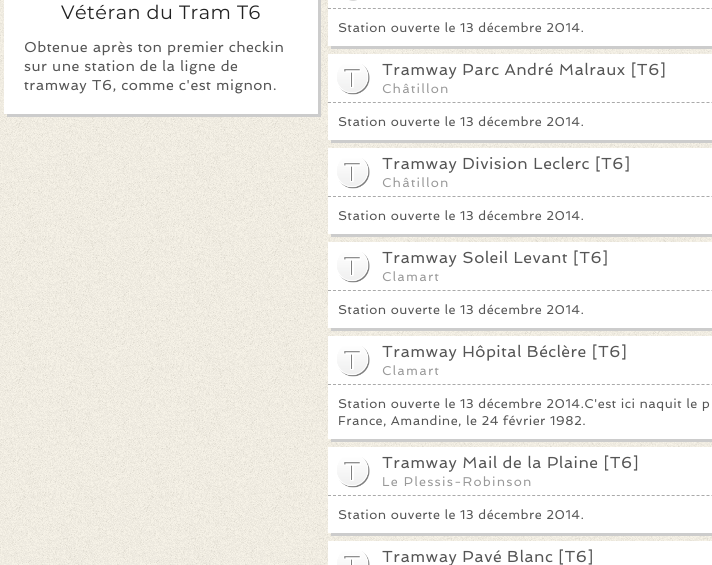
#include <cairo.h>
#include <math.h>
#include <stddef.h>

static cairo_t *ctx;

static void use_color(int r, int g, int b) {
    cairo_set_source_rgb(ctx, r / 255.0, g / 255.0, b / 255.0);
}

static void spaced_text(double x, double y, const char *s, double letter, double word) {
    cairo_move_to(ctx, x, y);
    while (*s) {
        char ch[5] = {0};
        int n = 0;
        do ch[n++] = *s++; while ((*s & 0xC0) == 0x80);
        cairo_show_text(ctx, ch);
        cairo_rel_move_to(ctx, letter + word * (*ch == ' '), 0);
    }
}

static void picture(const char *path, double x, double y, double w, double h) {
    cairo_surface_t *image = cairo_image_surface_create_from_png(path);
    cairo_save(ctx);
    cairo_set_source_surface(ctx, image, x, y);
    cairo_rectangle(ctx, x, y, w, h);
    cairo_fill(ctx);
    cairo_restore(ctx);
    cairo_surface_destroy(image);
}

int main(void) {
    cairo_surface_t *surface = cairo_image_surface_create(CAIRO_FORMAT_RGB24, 712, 565);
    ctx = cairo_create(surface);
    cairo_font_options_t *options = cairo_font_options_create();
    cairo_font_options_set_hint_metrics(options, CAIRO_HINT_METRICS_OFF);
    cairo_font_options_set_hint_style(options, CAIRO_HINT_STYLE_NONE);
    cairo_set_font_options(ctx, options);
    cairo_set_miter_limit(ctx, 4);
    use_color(255, 255, 255);
    cairo_paint(ctx);
    picture("img1.png", 0, 0, 712, 565);
    use_color(204, 204, 204);
    cairo_new_path(ctx);
    cairo_move_to(ctx, 7, 114);
    cairo_line_to(ctx, 7, 117);
    cairo_line_to(ctx, 321, 117);
    cairo_line_to(ctx, 321, -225);
    cairo_line_to(ctx, 318, -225);
    cairo_line_to(ctx, 318, 114);
    cairo_close_path(ctx);
    cairo_fill(ctx);
    use_color(255, 255, 255);
    cairo_rectangle(ctx, 4, 0, 314, 114);
    cairo_fill(ctx);
    cairo_select_font_face(ctx, "Montserrat Thin", CAIRO_FONT_SLANT_NORMAL, CAIRO_FONT_WEIGHT_NORMAL);
    cairo_set_font_size(ctx, 19.25);
    use_color(34, 34, 34);
    spaced_text(61, 19, "Vétéran du Tram T6", 0.48, 0);
    cairo_select_font_face(ctx, "Spinnaker", CAIRO_FONT_SLANT_NORMAL, CAIRO_FONT_WEIGHT_NORMAL);
    cairo_set_font_size(ctx, 14.4);
    use_color(85, 85, 85);
    spaced_text(24, 52, "Obtenue après ton premier checkin", 0.48, 0);
    spaced_text(24, 71, "sur une station de la ligne de", 0.48, 0);
    spaced_text(24, 90, "tramway T6, comme c'est mignon.", 0.48, 0);
    use_color(204, 204, 204);
    cairo_new_path(ctx);
    cairo_move_to(ctx, 331, 46);
    cairo_line_to(ctx, 331, 49);
    cairo_line_to(ctx, 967, 49);
    cairo_line_to(ctx, 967, -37);
    cairo_line_to(ctx, 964, -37);
    cairo_line_to(ctx, 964, 46);
    cairo_close_path(ctx);
    cairo_fill(ctx);
    use_color(255, 255, 255);
    cairo_rectangle(ctx, 328, 0, 384, 46);
    cairo_fill(ctx);
    cairo_new_path(ctx);
    cairo_move_to(ctx, 328, 8.5);
    cairo_line_to(ctx, 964, 8.5);
    use_color(170, 170, 170);
    cairo_set_line_width(ctx, 1);
    cairo_set_dash(ctx, (double[]){3, 1.98}, 2, 0);
    cairo_stroke(ctx);
    picture("img2.png", 349, 0, 8, 1);
    cairo_set_font_size(ctx, 12.8);
    use_color(85, 85, 85);
    spaced_text(338, 32, "Station ouverte le 13 décembre 2014.", 0.48, 0);
    use_color(204, 204, 204);
    cairo_new_path(ctx);
    cairo_move_to(ctx, 331, 140);
    cairo_line_to(ctx, 331, 143);
    cairo_line_to(ctx, 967, 143);
    cairo_line_to(ctx, 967, 57);
    cairo_line_to(ctx, 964, 57);
    cairo_line_to(ctx, 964, 140);
    cairo_close_path(ctx);
    cairo_fill(ctx);
    use_color(255, 255, 255);
    cairo_rectangle(ctx, 328, 54, 384, 86);
    cairo_fill(ctx);
    cairo_new_path(ctx);
    cairo_move_to(ctx, 328, 102.5);
    cairo_line_to(ctx, 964, 102.5);
    use_color(170, 170, 170);
    cairo_stroke(ctx);
    picture("img3.png", 337, 64, 33, 31);
    cairo_set_font_size(ctx, 16);
    use_color(85, 85, 85);
    spaced_text(382, 75, "Tramway Parc André Malraux [T6]", 0.48, 0);
    cairo_set_font_size(ctx, 12.8);
    use_color(153, 153, 153);
    spaced_text(382, 93, "Châtillon", 1.25, 0);
    use_color(85, 85, 85);
    spaced_text(338, 126, "Station ouverte le 13 décembre 2014.", 0.48, 0);
    use_color(204, 204, 204);
    cairo_new_path(ctx);
    cairo_move_to(ctx, 331, 234);
    cairo_line_to(ctx, 331, 237);
    cairo_line_to(ctx, 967, 237);
    cairo_line_to(ctx, 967, 151);
    cairo_line_to(ctx, 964, 151);
    cairo_line_to(ctx, 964, 234);
    cairo_close_path(ctx);
    cairo_fill(ctx);
    use_color(255, 255, 255);
    cairo_rectangle(ctx, 328, 148, 384, 86);
    cairo_fill(ctx);
    cairo_new_path(ctx);
    cairo_move_to(ctx, 328, 196.5);
    cairo_line_to(ctx, 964, 196.5);
    use_color(170, 170, 170);
    cairo_stroke(ctx);
    picture("img4.png", 337, 158, 33, 31);
    cairo_set_font_size(ctx, 16);
    use_color(85, 85, 85);
    spaced_text(382, 169, "Tramway Division Leclerc [T6]", 0.48, 0);
    cairo_set_font_size(ctx, 12.8);
    use_color(153, 153, 153);
    spaced_text(382, 187, "Châtillon", 1.25, 0);
    use_color(85, 85, 85);
    spaced_text(338, 220, "Station ouverte le 13 décembre 2014.", 0.48, 0);
    use_color(204, 204, 204);
    cairo_new_path(ctx);
    cairo_move_to(ctx, 331, 328);
    cairo_line_to(ctx, 331, 331);
    cairo_line_to(ctx, 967, 331);
    cairo_line_to(ctx, 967, 245);
    cairo_line_to(ctx, 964, 245);
    cairo_line_to(ctx, 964, 328);
    cairo_close_path(ctx);
    cairo_fill(ctx);
    use_color(255, 255, 255);
    cairo_rectangle(ctx, 328, 242, 384, 86);
    cairo_fill(ctx);
    cairo_new_path(ctx);
    cairo_move_to(ctx, 328, 290.5);
    cairo_line_to(ctx, 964, 290.5);
    use_color(170, 170, 170);
    cairo_stroke(ctx);
    picture("img3.png", 337, 252, 33, 31);
    cairo_set_font_size(ctx, 16);
    use_color(85, 85, 85);
    spaced_text(382, 263, "Tramway Soleil Levant [T6]", 0.48, 0);
    cairo_set_font_size(ctx, 12.8);
    use_color(153, 153, 153);
    spaced_text(382, 281, "Clamart", 1.25, 0);
    use_color(85, 85, 85);
    spaced_text(338, 314, "Station ouverte le 13 décembre 2014.", 0.48, 0);
    use_color(204, 204, 204);
    cairo_new_path(ctx);
    cairo_move_to(ctx, 331, 439);
    cairo_line_to(ctx, 331, 442);
    cairo_line_to(ctx, 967, 442);
    cairo_line_to(ctx, 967, 339);
    cairo_line_to(ctx, 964, 339);
    cairo_line_to(ctx, 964, 439);
    cairo_close_path(ctx);
    cairo_fill(ctx);
    use_color(255, 255, 255);
    cairo_rectangle(ctx, 328, 336, 384, 103);
    cairo_fill(ctx);
    cairo_new_path(ctx);
    cairo_move_to(ctx, 328, 384.5);
    cairo_line_to(ctx, 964, 384.5);
    use_color(170, 170, 170);
    cairo_stroke(ctx);
    picture("img3.png", 337, 346, 33, 31);
    cairo_set_font_size(ctx, 16);
    use_color(85, 85, 85);
    spaced_text(382, 357, "Tramway Hôpital Béclère [T6]", 0.48, 0);
    cairo_set_font_size(ctx, 12.8);
    use_color(153, 153, 153);
    spaced_text(382, 375, "Clamart", 1.25, 0);
    use_color(85, 85, 85);
    spaced_text(338, 408, "Station ouverte le 13 décembre 2014.C'est ici naquit le p", 0.48, 0);
    spaced_text(338, 425, "France, Amandine, le 24 février 1982.", 0.48, 0);
    use_color(204, 204, 204);
    cairo_new_path(ctx);
    cairo_move_to(ctx, 331, 533);
    cairo_line_to(ctx, 331, 536);
    cairo_line_to(ctx, 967, 536);
    cairo_line_to(ctx, 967, 450);
    cairo_line_to(ctx, 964, 450);
    cairo_line_to(ctx, 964, 533);
    cairo_close_path(ctx);
    cairo_fill(ctx);
    use_color(255, 255, 255);
    cairo_rectangle(ctx, 328, 447, 384, 86);
    cairo_fill(ctx);
    cairo_new_path(ctx);
    cairo_move_to(ctx, 328, 495.5);
    cairo_line_to(ctx, 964, 495.5);
    use_color(170, 170, 170);
    cairo_stroke(ctx);
    picture("img5.png", 337, 457, 33, 31);
    cairo_set_font_size(ctx, 16);
    use_color(85, 85, 85);
    spaced_text(382, 468, "Tramway Mail de la Plaine [T6]", 0.48, 0);
    cairo_set_font_size(ctx, 12.8);
    use_color(153, 153, 153);
    spaced_text(382, 486, "Le Plessis-Robinson", 1.25, 0);
    use_color(85, 85, 85);
    spaced_text(338, 519, "Station ouverte le 13 décembre 2014.", 0.48, 0);
    use_color(255, 255, 255);
    cairo_rectangle(ctx, 328, 541, 384, 24);
    cairo_fill(ctx);
    picture("img6.png", 337, 551, 33, 14);
    cairo_set_font_size(ctx, 16);
    use_color(85, 85, 85);
    spaced_text(382, 562, "Tramway Pavé Blanc [T6]", 0.48, 0);
    cairo_surface_write_to_png(surface, "result.png");
    cairo_font_options_destroy(options);
    cairo_destroy(ctx);
    cairo_surface_destroy(surface);
    return 0;
}
